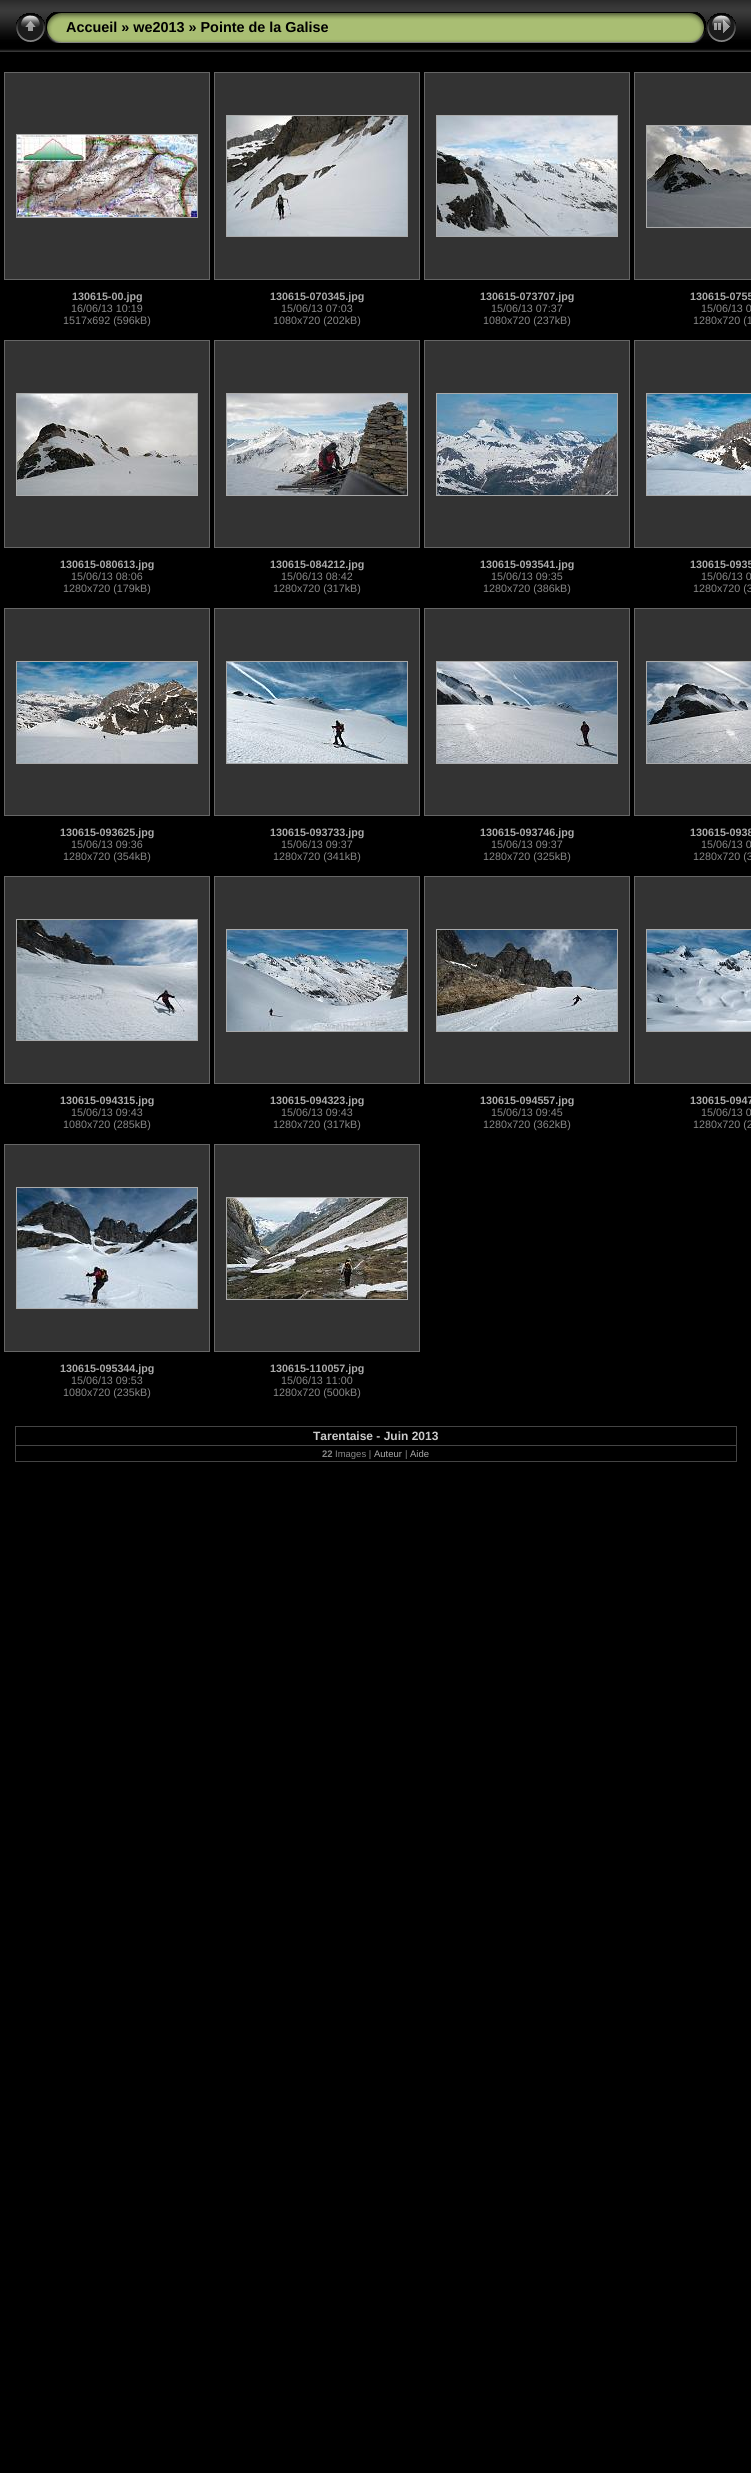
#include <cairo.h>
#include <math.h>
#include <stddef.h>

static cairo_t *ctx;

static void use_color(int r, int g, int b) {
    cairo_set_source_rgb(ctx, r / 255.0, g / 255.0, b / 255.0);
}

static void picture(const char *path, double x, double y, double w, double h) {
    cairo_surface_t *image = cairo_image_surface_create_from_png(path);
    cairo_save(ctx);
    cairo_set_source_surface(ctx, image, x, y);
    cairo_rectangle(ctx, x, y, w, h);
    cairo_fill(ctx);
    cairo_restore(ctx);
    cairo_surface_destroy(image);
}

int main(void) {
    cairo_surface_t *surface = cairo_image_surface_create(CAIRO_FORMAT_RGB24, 751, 2473);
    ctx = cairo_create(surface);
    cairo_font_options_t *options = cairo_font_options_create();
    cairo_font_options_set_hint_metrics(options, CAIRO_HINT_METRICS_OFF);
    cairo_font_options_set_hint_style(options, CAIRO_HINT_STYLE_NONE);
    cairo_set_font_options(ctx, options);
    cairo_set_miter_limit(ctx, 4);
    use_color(0, 0, 0);
    cairo_paint(ctx);
    picture("img1.png", 0, 0, 751, 52);
    picture("img2.png", 16, 13, 29, 29);
    picture("img3.png", 46, 12, 20, 31);
    picture("img4.png", 66, 12, 620, 31);
    cairo_select_font_face(ctx, "Liberation Sans", CAIRO_FONT_SLANT_NORMAL, CAIRO_FONT_WEIGHT_BOLD);
    cairo_set_font_size(ctx, 14.4);
    use_color(0, 0, 0);
    cairo_move_to(ctx, 66, 32);
    cairo_show_text(ctx, "Accueil » we2013 » Pointe de la Galise");
    picture("img5.png", 686, 12, 20, 31);
    picture("img6.png", 707, 13, 29, 29);
    use_color(51, 51, 51);
    cairo_rectangle(ctx, 4.5, 72.5, 205, 207);
    cairo_fill_preserve(ctx);
    use_color(102, 102, 102);
    cairo_set_line_width(ctx, 1);
    cairo_stroke(ctx);
    cairo_rectangle(ctx, 16.5, 134.5, 181, 83);
    use_color(170, 170, 170);
    cairo_stroke(ctx);
    picture("img7.png", 17, 135, 180, 82);
    cairo_set_font_size(ctx, 10.75);
    cairo_move_to(ctx, 72, 300);
    cairo_show_text(ctx, "130615-00.jpg");
    cairo_select_font_face(ctx, "Liberation Sans", CAIRO_FONT_SLANT_NORMAL, CAIRO_FONT_WEIGHT_NORMAL);
    use_color(136, 136, 136);
    cairo_move_to(ctx, 71, 312);
    cairo_show_text(ctx, "16/06/13 10:19");
    cairo_move_to(ctx, 63, 324);
    cairo_show_text(ctx, "1517x692 (596kB)");
    use_color(51, 51, 51);
    cairo_rectangle(ctx, 214.5, 72.5, 205, 207);
    cairo_fill_preserve(ctx);
    use_color(102, 102, 102);
    cairo_stroke(ctx);
    cairo_rectangle(ctx, 226.5, 115.5, 181, 121);
    use_color(170, 170, 170);
    cairo_stroke(ctx);
    picture("img8.png", 227, 116, 180, 120);
    cairo_select_font_face(ctx, "Liberation Sans", CAIRO_FONT_SLANT_NORMAL, CAIRO_FONT_WEIGHT_BOLD);
    cairo_move_to(ctx, 270, 300);
    cairo_show_text(ctx, "130615-070345.jpg");
    cairo_select_font_face(ctx, "Liberation Sans", CAIRO_FONT_SLANT_NORMAL, CAIRO_FONT_WEIGHT_NORMAL);
    use_color(136, 136, 136);
    cairo_move_to(ctx, 281, 312);
    cairo_show_text(ctx, "15/06/13 07:03");
    cairo_move_to(ctx, 273, 324);
    cairo_show_text(ctx, "1080x720 (202kB)");
    use_color(51, 51, 51);
    cairo_rectangle(ctx, 424.5, 72.5, 205, 207);
    cairo_fill_preserve(ctx);
    use_color(102, 102, 102);
    cairo_stroke(ctx);
    cairo_rectangle(ctx, 436.5, 115.5, 181, 121);
    use_color(170, 170, 170);
    cairo_stroke(ctx);
    picture("img9.png", 437, 116, 180, 120);
    cairo_select_font_face(ctx, "Liberation Sans", CAIRO_FONT_SLANT_NORMAL, CAIRO_FONT_WEIGHT_BOLD);
    cairo_move_to(ctx, 480, 300);
    cairo_show_text(ctx, "130615-073707.jpg");
    cairo_select_font_face(ctx, "Liberation Sans", CAIRO_FONT_SLANT_NORMAL, CAIRO_FONT_WEIGHT_NORMAL);
    use_color(136, 136, 136);
    cairo_move_to(ctx, 491, 312);
    cairo_show_text(ctx, "15/06/13 07:37");
    cairo_move_to(ctx, 483, 324);
    cairo_show_text(ctx, "1080x720 (237kB)");
    use_color(51, 51, 51);
    cairo_rectangle(ctx, 634.5, 72.5, 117, 207);
    cairo_fill_preserve(ctx);
    use_color(102, 102, 102);
    cairo_stroke(ctx);
    cairo_rectangle(ctx, 646.5, 125.5, 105, 102);
    use_color(170, 170, 170);
    cairo_stroke(ctx);
    picture("img10.png", 647, 126, 104, 101);
    cairo_select_font_face(ctx, "Liberation Sans", CAIRO_FONT_SLANT_NORMAL, CAIRO_FONT_WEIGHT_BOLD);
    cairo_move_to(ctx, 690, 300);
    cairo_show_text(ctx, "130615-0755");
    cairo_select_font_face(ctx, "Liberation Sans", CAIRO_FONT_SLANT_NORMAL, CAIRO_FONT_WEIGHT_NORMAL);
    use_color(136, 136, 136);
    cairo_move_to(ctx, 701, 312);
    cairo_show_text(ctx, "15/06/13 0");
    cairo_move_to(ctx, 693, 324);
    cairo_show_text(ctx, "1280x720 (1");
    use_color(51, 51, 51);
    cairo_rectangle(ctx, 4.5, 340.5, 205, 207);
    cairo_fill_preserve(ctx);
    use_color(102, 102, 102);
    cairo_stroke(ctx);
    cairo_rectangle(ctx, 16.5, 393.5, 181, 102);
    use_color(170, 170, 170);
    cairo_stroke(ctx);
    picture("img11.png", 17, 394, 180, 101);
    cairo_select_font_face(ctx, "Liberation Sans", CAIRO_FONT_SLANT_NORMAL, CAIRO_FONT_WEIGHT_BOLD);
    cairo_move_to(ctx, 60, 568);
    cairo_show_text(ctx, "130615-080613.jpg");
    cairo_select_font_face(ctx, "Liberation Sans", CAIRO_FONT_SLANT_NORMAL, CAIRO_FONT_WEIGHT_NORMAL);
    use_color(136, 136, 136);
    cairo_move_to(ctx, 71, 580);
    cairo_show_text(ctx, "15/06/13 08:06");
    cairo_move_to(ctx, 63, 592);
    cairo_show_text(ctx, "1280x720 (179kB)");
    use_color(51, 51, 51);
    cairo_rectangle(ctx, 214.5, 340.5, 205, 207);
    cairo_fill_preserve(ctx);
    use_color(102, 102, 102);
    cairo_stroke(ctx);
    cairo_rectangle(ctx, 226.5, 393.5, 181, 102);
    use_color(170, 170, 170);
    cairo_stroke(ctx);
    picture("img12.png", 227, 394, 180, 101);
    cairo_select_font_face(ctx, "Liberation Sans", CAIRO_FONT_SLANT_NORMAL, CAIRO_FONT_WEIGHT_BOLD);
    cairo_move_to(ctx, 270, 568);
    cairo_show_text(ctx, "130615-084212.jpg");
    cairo_select_font_face(ctx, "Liberation Sans", CAIRO_FONT_SLANT_NORMAL, CAIRO_FONT_WEIGHT_NORMAL);
    use_color(136, 136, 136);
    cairo_move_to(ctx, 281, 580);
    cairo_show_text(ctx, "15/06/13 08:42");
    cairo_move_to(ctx, 273, 592);
    cairo_show_text(ctx, "1280x720 (317kB)");
    use_color(51, 51, 51);
    cairo_rectangle(ctx, 424.5, 340.5, 205, 207);
    cairo_fill_preserve(ctx);
    use_color(102, 102, 102);
    cairo_stroke(ctx);
    cairo_rectangle(ctx, 436.5, 393.5, 181, 102);
    use_color(170, 170, 170);
    cairo_stroke(ctx);
    picture("img13.png", 437, 394, 180, 101);
    cairo_select_font_face(ctx, "Liberation Sans", CAIRO_FONT_SLANT_NORMAL, CAIRO_FONT_WEIGHT_BOLD);
    cairo_move_to(ctx, 480, 568);
    cairo_show_text(ctx, "130615-093541.jpg");
    cairo_select_font_face(ctx, "Liberation Sans", CAIRO_FONT_SLANT_NORMAL, CAIRO_FONT_WEIGHT_NORMAL);
    use_color(136, 136, 136);
    cairo_move_to(ctx, 491, 580);
    cairo_show_text(ctx, "15/06/13 09:35");
    cairo_move_to(ctx, 483, 592);
    cairo_show_text(ctx, "1280x720 (386kB)");
    use_color(51, 51, 51);
    cairo_rectangle(ctx, 634.5, 340.5, 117, 207);
    cairo_fill_preserve(ctx);
    use_color(102, 102, 102);
    cairo_stroke(ctx);
    cairo_rectangle(ctx, 646.5, 393.5, 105, 102);
    use_color(170, 170, 170);
    cairo_stroke(ctx);
    picture("img14.png", 647, 394, 104, 101);
    cairo_select_font_face(ctx, "Liberation Sans", CAIRO_FONT_SLANT_NORMAL, CAIRO_FONT_WEIGHT_BOLD);
    cairo_move_to(ctx, 690, 568);
    cairo_show_text(ctx, "130615-0935");
    cairo_select_font_face(ctx, "Liberation Sans", CAIRO_FONT_SLANT_NORMAL, CAIRO_FONT_WEIGHT_NORMAL);
    use_color(136, 136, 136);
    cairo_move_to(ctx, 701, 580);
    cairo_show_text(ctx, "15/06/13 0");
    cairo_move_to(ctx, 693, 592);
    cairo_show_text(ctx, "1280x720 (3");
    use_color(51, 51, 51);
    cairo_rectangle(ctx, 4.5, 608.5, 205, 207);
    cairo_fill_preserve(ctx);
    use_color(102, 102, 102);
    cairo_stroke(ctx);
    cairo_rectangle(ctx, 16.5, 661.5, 181, 102);
    use_color(170, 170, 170);
    cairo_stroke(ctx);
    picture("img15.png", 17, 662, 180, 101);
    cairo_select_font_face(ctx, "Liberation Sans", CAIRO_FONT_SLANT_NORMAL, CAIRO_FONT_WEIGHT_BOLD);
    cairo_move_to(ctx, 60, 836);
    cairo_show_text(ctx, "130615-093625.jpg");
    cairo_select_font_face(ctx, "Liberation Sans", CAIRO_FONT_SLANT_NORMAL, CAIRO_FONT_WEIGHT_NORMAL);
    use_color(136, 136, 136);
    cairo_move_to(ctx, 71, 848);
    cairo_show_text(ctx, "15/06/13 09:36");
    cairo_move_to(ctx, 63, 860);
    cairo_show_text(ctx, "1280x720 (354kB)");
    use_color(51, 51, 51);
    cairo_rectangle(ctx, 214.5, 608.5, 205, 207);
    cairo_fill_preserve(ctx);
    use_color(102, 102, 102);
    cairo_stroke(ctx);
    cairo_rectangle(ctx, 226.5, 661.5, 181, 102);
    use_color(170, 170, 170);
    cairo_stroke(ctx);
    picture("img16.png", 227, 662, 180, 101);
    cairo_select_font_face(ctx, "Liberation Sans", CAIRO_FONT_SLANT_NORMAL, CAIRO_FONT_WEIGHT_BOLD);
    cairo_move_to(ctx, 270, 836);
    cairo_show_text(ctx, "130615-093733.jpg");
    cairo_select_font_face(ctx, "Liberation Sans", CAIRO_FONT_SLANT_NORMAL, CAIRO_FONT_WEIGHT_NORMAL);
    use_color(136, 136, 136);
    cairo_move_to(ctx, 281, 848);
    cairo_show_text(ctx, "15/06/13 09:37");
    cairo_move_to(ctx, 273, 860);
    cairo_show_text(ctx, "1280x720 (341kB)");
    use_color(51, 51, 51);
    cairo_rectangle(ctx, 424.5, 608.5, 205, 207);
    cairo_fill_preserve(ctx);
    use_color(102, 102, 102);
    cairo_stroke(ctx);
    cairo_rectangle(ctx, 436.5, 661.5, 181, 102);
    use_color(170, 170, 170);
    cairo_stroke(ctx);
    picture("img17.png", 437, 662, 180, 101);
    cairo_select_font_face(ctx, "Liberation Sans", CAIRO_FONT_SLANT_NORMAL, CAIRO_FONT_WEIGHT_BOLD);
    cairo_move_to(ctx, 480, 836);
    cairo_show_text(ctx, "130615-093746.jpg");
    cairo_select_font_face(ctx, "Liberation Sans", CAIRO_FONT_SLANT_NORMAL, CAIRO_FONT_WEIGHT_NORMAL);
    use_color(136, 136, 136);
    cairo_move_to(ctx, 491, 848);
    cairo_show_text(ctx, "15/06/13 09:37");
    cairo_move_to(ctx, 483, 860);
    cairo_show_text(ctx, "1280x720 (325kB)");
    use_color(51, 51, 51);
    cairo_rectangle(ctx, 634.5, 608.5, 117, 207);
    cairo_fill_preserve(ctx);
    use_color(102, 102, 102);
    cairo_stroke(ctx);
    cairo_rectangle(ctx, 646.5, 661.5, 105, 102);
    use_color(170, 170, 170);
    cairo_stroke(ctx);
    picture("img18.png", 647, 662, 104, 101);
    cairo_select_font_face(ctx, "Liberation Sans", CAIRO_FONT_SLANT_NORMAL, CAIRO_FONT_WEIGHT_BOLD);
    cairo_move_to(ctx, 690, 836);
    cairo_show_text(ctx, "130615-0938");
    cairo_select_font_face(ctx, "Liberation Sans", CAIRO_FONT_SLANT_NORMAL, CAIRO_FONT_WEIGHT_NORMAL);
    use_color(136, 136, 136);
    cairo_move_to(ctx, 701, 848);
    cairo_show_text(ctx, "15/06/13 0");
    cairo_move_to(ctx, 693, 860);
    cairo_show_text(ctx, "1280x720 (3");
    use_color(51, 51, 51);
    cairo_rectangle(ctx, 4.5, 876.5, 205, 207);
    cairo_fill_preserve(ctx);
    use_color(102, 102, 102);
    cairo_stroke(ctx);
    cairo_rectangle(ctx, 16.5, 919.5, 181, 121);
    use_color(170, 170, 170);
    cairo_stroke(ctx);
    picture("img19.png", 17, 920, 180, 120);
    cairo_select_font_face(ctx, "Liberation Sans", CAIRO_FONT_SLANT_NORMAL, CAIRO_FONT_WEIGHT_BOLD);
    cairo_move_to(ctx, 60, 1104);
    cairo_show_text(ctx, "130615-094315.jpg");
    cairo_select_font_face(ctx, "Liberation Sans", CAIRO_FONT_SLANT_NORMAL, CAIRO_FONT_WEIGHT_NORMAL);
    use_color(136, 136, 136);
    cairo_move_to(ctx, 71, 1116);
    cairo_show_text(ctx, "15/06/13 09:43");
    cairo_move_to(ctx, 63, 1128);
    cairo_show_text(ctx, "1080x720 (285kB)");
    use_color(51, 51, 51);
    cairo_rectangle(ctx, 214.5, 876.5, 205, 207);
    cairo_fill_preserve(ctx);
    use_color(102, 102, 102);
    cairo_stroke(ctx);
    cairo_rectangle(ctx, 226.5, 929.5, 181, 102);
    use_color(170, 170, 170);
    cairo_stroke(ctx);
    picture("img20.png", 227, 930, 180, 101);
    cairo_select_font_face(ctx, "Liberation Sans", CAIRO_FONT_SLANT_NORMAL, CAIRO_FONT_WEIGHT_BOLD);
    cairo_move_to(ctx, 270, 1104);
    cairo_show_text(ctx, "130615-094323.jpg");
    cairo_select_font_face(ctx, "Liberation Sans", CAIRO_FONT_SLANT_NORMAL, CAIRO_FONT_WEIGHT_NORMAL);
    use_color(136, 136, 136);
    cairo_move_to(ctx, 281, 1116);
    cairo_show_text(ctx, "15/06/13 09:43");
    cairo_move_to(ctx, 273, 1128);
    cairo_show_text(ctx, "1280x720 (317kB)");
    use_color(51, 51, 51);
    cairo_rectangle(ctx, 424.5, 876.5, 205, 207);
    cairo_fill_preserve(ctx);
    use_color(102, 102, 102);
    cairo_stroke(ctx);
    cairo_rectangle(ctx, 436.5, 929.5, 181, 102);
    use_color(170, 170, 170);
    cairo_stroke(ctx);
    picture("img21.png", 437, 930, 180, 101);
    cairo_select_font_face(ctx, "Liberation Sans", CAIRO_FONT_SLANT_NORMAL, CAIRO_FONT_WEIGHT_BOLD);
    cairo_move_to(ctx, 480, 1104);
    cairo_show_text(ctx, "130615-094557.jpg");
    cairo_select_font_face(ctx, "Liberation Sans", CAIRO_FONT_SLANT_NORMAL, CAIRO_FONT_WEIGHT_NORMAL);
    use_color(136, 136, 136);
    cairo_move_to(ctx, 491, 1116);
    cairo_show_text(ctx, "15/06/13 09:45");
    cairo_move_to(ctx, 483, 1128);
    cairo_show_text(ctx, "1280x720 (362kB)");
    use_color(51, 51, 51);
    cairo_rectangle(ctx, 634.5, 876.5, 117, 207);
    cairo_fill_preserve(ctx);
    use_color(102, 102, 102);
    cairo_stroke(ctx);
    cairo_rectangle(ctx, 646.5, 929.5, 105, 102);
    use_color(170, 170, 170);
    cairo_stroke(ctx);
    picture("img22.png", 647, 930, 104, 101);
    cairo_select_font_face(ctx, "Liberation Sans", CAIRO_FONT_SLANT_NORMAL, CAIRO_FONT_WEIGHT_BOLD);
    cairo_move_to(ctx, 690, 1104);
    cairo_show_text(ctx, "130615-0947");
    cairo_select_font_face(ctx, "Liberation Sans", CAIRO_FONT_SLANT_NORMAL, CAIRO_FONT_WEIGHT_NORMAL);
    use_color(136, 136, 136);
    cairo_move_to(ctx, 701, 1116);
    cairo_show_text(ctx, "15/06/13 0");
    cairo_move_to(ctx, 693, 1128);
    cairo_show_text(ctx, "1280x720 (2");
    use_color(51, 51, 51);
    cairo_rectangle(ctx, 4.5, 1144.5, 205, 207);
    cairo_fill_preserve(ctx);
    use_color(102, 102, 102);
    cairo_stroke(ctx);
    cairo_rectangle(ctx, 16.5, 1187.5, 181, 121);
    use_color(170, 170, 170);
    cairo_stroke(ctx);
    picture("img23.png", 17, 1188, 180, 120);
    cairo_select_font_face(ctx, "Liberation Sans", CAIRO_FONT_SLANT_NORMAL, CAIRO_FONT_WEIGHT_BOLD);
    cairo_move_to(ctx, 60, 1372);
    cairo_show_text(ctx, "130615-095344.jpg");
    cairo_select_font_face(ctx, "Liberation Sans", CAIRO_FONT_SLANT_NORMAL, CAIRO_FONT_WEIGHT_NORMAL);
    use_color(136, 136, 136);
    cairo_move_to(ctx, 71, 1384);
    cairo_show_text(ctx, "15/06/13 09:53");
    cairo_move_to(ctx, 63, 1396);
    cairo_show_text(ctx, "1080x720 (235kB)");
    use_color(51, 51, 51);
    cairo_rectangle(ctx, 214.5, 1144.5, 205, 207);
    cairo_fill_preserve(ctx);
    use_color(102, 102, 102);
    cairo_stroke(ctx);
    cairo_rectangle(ctx, 226.5, 1197.5, 181, 102);
    use_color(170, 170, 170);
    cairo_stroke(ctx);
    picture("img24.png", 227, 1198, 180, 101);
    cairo_select_font_face(ctx, "Liberation Sans", CAIRO_FONT_SLANT_NORMAL, CAIRO_FONT_WEIGHT_BOLD);
    cairo_move_to(ctx, 270, 1372);
    cairo_show_text(ctx, "130615-110057.jpg");
    cairo_select_font_face(ctx, "Liberation Sans", CAIRO_FONT_SLANT_NORMAL, CAIRO_FONT_WEIGHT_NORMAL);
    use_color(136, 136, 136);
    cairo_move_to(ctx, 281, 1384);
    cairo_show_text(ctx, "15/06/13 11:00");
    cairo_move_to(ctx, 273, 1396);
    cairo_show_text(ctx, "1280x720 (500kB)");
    use_color(68, 68, 68);
    cairo_rectangle(ctx, 15, 1426, 722, 1);
    cairo_fill(ctx);
    cairo_rectangle(ctx, 736, 1426, 1, 36);
    cairo_fill(ctx);
    cairo_rectangle(ctx, 15, 1461, 722, 1);
    cairo_fill(ctx);
    cairo_rectangle(ctx, 15, 1426, 1, 36);
    cairo_fill(ctx);
    cairo_select_font_face(ctx, "Liberation Sans", CAIRO_FONT_SLANT_NORMAL, CAIRO_FONT_WEIGHT_BOLD);
    cairo_set_font_size(ctx, 12);
    use_color(204, 204, 204);
    cairo_move_to(ctx, 313, 1440);
    cairo_show_text(ctx, "Tarentaise - Juin 2013");
    use_color(68, 68, 68);
    cairo_rectangle(ctx, 15, 1445, 722, 1);
    cairo_fill(ctx);
    cairo_set_font_size(ctx, 9.5);
    use_color(136, 136, 136);
    cairo_move_to(ctx, 322, 1457);
    cairo_show_text(ctx, "22");
    cairo_select_font_face(ctx, "Liberation Sans", CAIRO_FONT_SLANT_NORMAL, CAIRO_FONT_WEIGHT_NORMAL);
    cairo_move_to(ctx, 335, 1457);
    cairo_show_text(ctx, "Images |");
    use_color(170, 170, 170);
    cairo_move_to(ctx, 374, 1457);
    cairo_show_text(ctx, "Auteur");
    use_color(136, 136, 136);
    cairo_move_to(ctx, 405, 1457);
    cairo_show_text(ctx, "|");
    use_color(170, 170, 170);
    cairo_move_to(ctx, 410, 1457);
    cairo_show_text(ctx, "Aide");
    cairo_surface_write_to_png(surface, "result.png");
    cairo_font_options_destroy(options);
    cairo_destroy(ctx);
    cairo_surface_destroy(surface);
    return 0;
}
